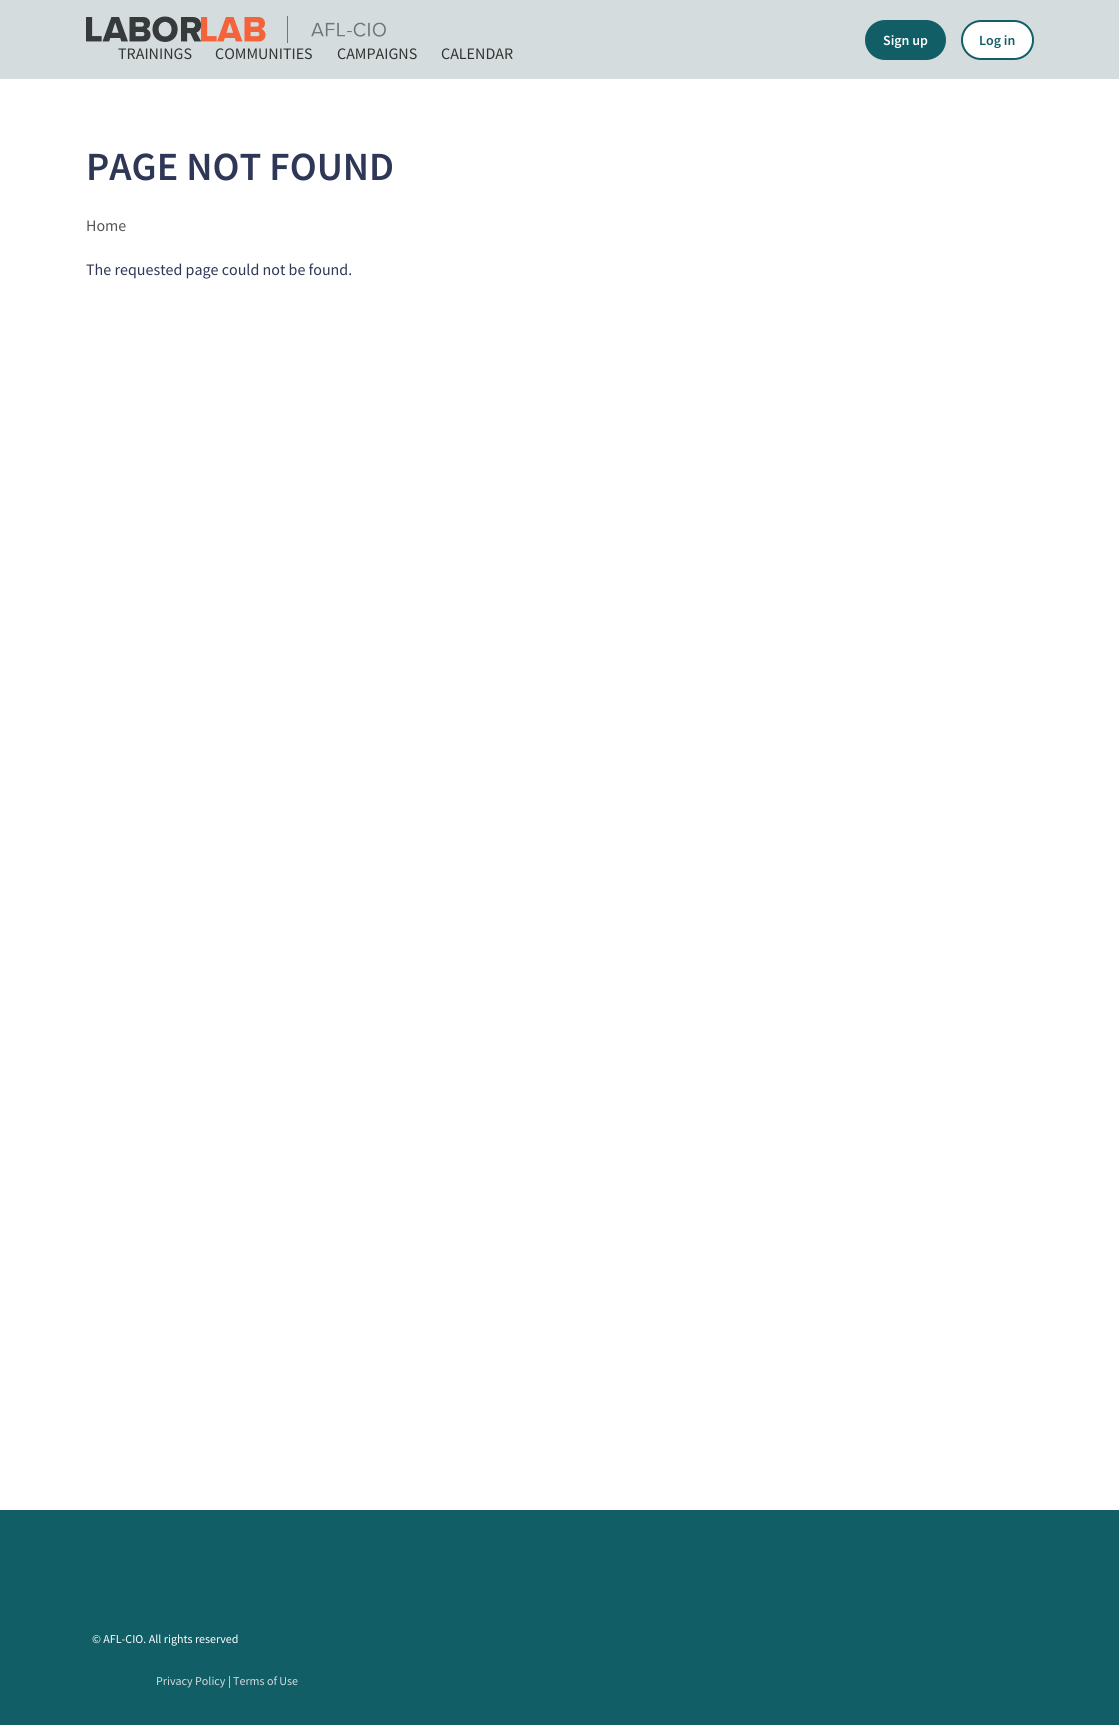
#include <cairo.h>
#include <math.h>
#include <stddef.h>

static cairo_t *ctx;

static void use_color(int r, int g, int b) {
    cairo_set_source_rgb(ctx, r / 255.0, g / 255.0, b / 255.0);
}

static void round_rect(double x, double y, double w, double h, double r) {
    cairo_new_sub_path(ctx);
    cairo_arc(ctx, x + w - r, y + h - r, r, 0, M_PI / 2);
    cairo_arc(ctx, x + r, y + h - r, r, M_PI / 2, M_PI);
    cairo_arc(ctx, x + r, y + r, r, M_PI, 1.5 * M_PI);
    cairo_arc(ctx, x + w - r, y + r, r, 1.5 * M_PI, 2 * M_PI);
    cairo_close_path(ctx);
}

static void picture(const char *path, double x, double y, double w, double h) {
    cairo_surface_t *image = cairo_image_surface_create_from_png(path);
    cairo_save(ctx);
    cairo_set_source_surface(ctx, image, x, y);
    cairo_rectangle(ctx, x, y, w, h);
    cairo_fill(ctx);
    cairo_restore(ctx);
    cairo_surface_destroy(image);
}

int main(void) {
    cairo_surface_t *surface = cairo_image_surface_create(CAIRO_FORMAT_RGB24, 1119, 1725);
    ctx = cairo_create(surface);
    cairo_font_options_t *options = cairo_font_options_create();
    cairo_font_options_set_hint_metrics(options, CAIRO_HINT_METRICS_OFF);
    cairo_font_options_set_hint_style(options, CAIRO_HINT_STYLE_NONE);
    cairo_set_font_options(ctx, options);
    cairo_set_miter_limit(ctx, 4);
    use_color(255, 255, 255);
    cairo_paint(ctx);
    use_color(212, 220, 221);
    cairo_rectangle(ctx, 0, 0, 1119, 79);
    cairo_fill(ctx);
    use_color(17, 94, 103);
    round_rect(866, 21, 79, 38, 19);
    cairo_fill_preserve(ctx);
    cairo_stroke(ctx);
    cairo_select_font_face(ctx, "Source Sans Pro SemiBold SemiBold", CAIRO_FONT_SLANT_NORMAL, CAIRO_FONT_WEIGHT_NORMAL);
    cairo_set_font_size(ctx, 14);
    use_color(255, 255, 255);
    cairo_move_to(ctx, 883, 45);
    cairo_show_text(ctx, "Sign up");
    round_rect(962, 21, 71, 38, 19);
    cairo_fill_preserve(ctx);
    use_color(17, 94, 103);
    cairo_stroke(ctx);
    cairo_move_to(ctx, 979, 45);
    cairo_show_text(ctx, "Log in");
    picture("img1.png", 86, 16, 300, 27);
    cairo_select_font_face(ctx, "Source Sans Pro", CAIRO_FONT_SLANT_NORMAL, CAIRO_FONT_WEIGHT_NORMAL);
    cairo_set_font_size(ctx, 16);
    use_color(51, 51, 51);
    cairo_move_to(ctx, 118, 59);
    cairo_show_text(ctx, "TRAININGS");
    cairo_move_to(ctx, 215, 59);
    cairo_show_text(ctx, "COMMUNITIES");
    cairo_move_to(ctx, 337, 59);
    cairo_show_text(ctx, "CAMPAIGNS");
    cairo_move_to(ctx, 441, 59);
    cairo_show_text(ctx, "CALENDAR");
    cairo_select_font_face(ctx, "Source Sans Pro SemiBold SemiBold", CAIRO_FONT_SLANT_NORMAL, CAIRO_FONT_WEIGHT_NORMAL);
    cairo_set_font_size(ctx, 40);
    use_color(47, 55, 86);
    cairo_move_to(ctx, 86, 180);
    cairo_show_text(ctx, "PAGE NOT FOUND");
    cairo_select_font_face(ctx, "Source Sans Pro", CAIRO_FONT_SLANT_NORMAL, CAIRO_FONT_WEIGHT_NORMAL);
    cairo_set_font_size(ctx, 16);
    use_color(85, 85, 85);
    cairo_move_to(ctx, 86, 231);
    cairo_show_text(ctx, "Home");
    use_color(47, 55, 86);
    cairo_move_to(ctx, 86, 275);
    cairo_show_text(ctx, "The requested page could not be found.");
    use_color(17, 94, 103);
    cairo_rectangle(ctx, 0, 1510, 1119, 215);
    cairo_fill(ctx);
    cairo_set_font_size(ctx, 12);
    use_color(255, 255, 255);
    cairo_move_to(ctx, 92, 1643);
    cairo_show_text(ctx, "© AFL-CIO. All rights reserved");
    use_color(212, 220, 221);
    cairo_move_to(ctx, 156, 1685);
    cairo_show_text(ctx, "Privacy Policy");
    use_color(255, 255, 255);
    cairo_move_to(ctx, 228, 1685);
    cairo_show_text(ctx, "|");
    use_color(212, 220, 221);
    cairo_move_to(ctx, 233, 1685);
    cairo_show_text(ctx, "Terms of Use");
    cairo_surface_write_to_png(surface, "result.png");
    cairo_font_options_destroy(options);
    cairo_destroy(ctx);
    cairo_surface_destroy(surface);
    return 0;
}
